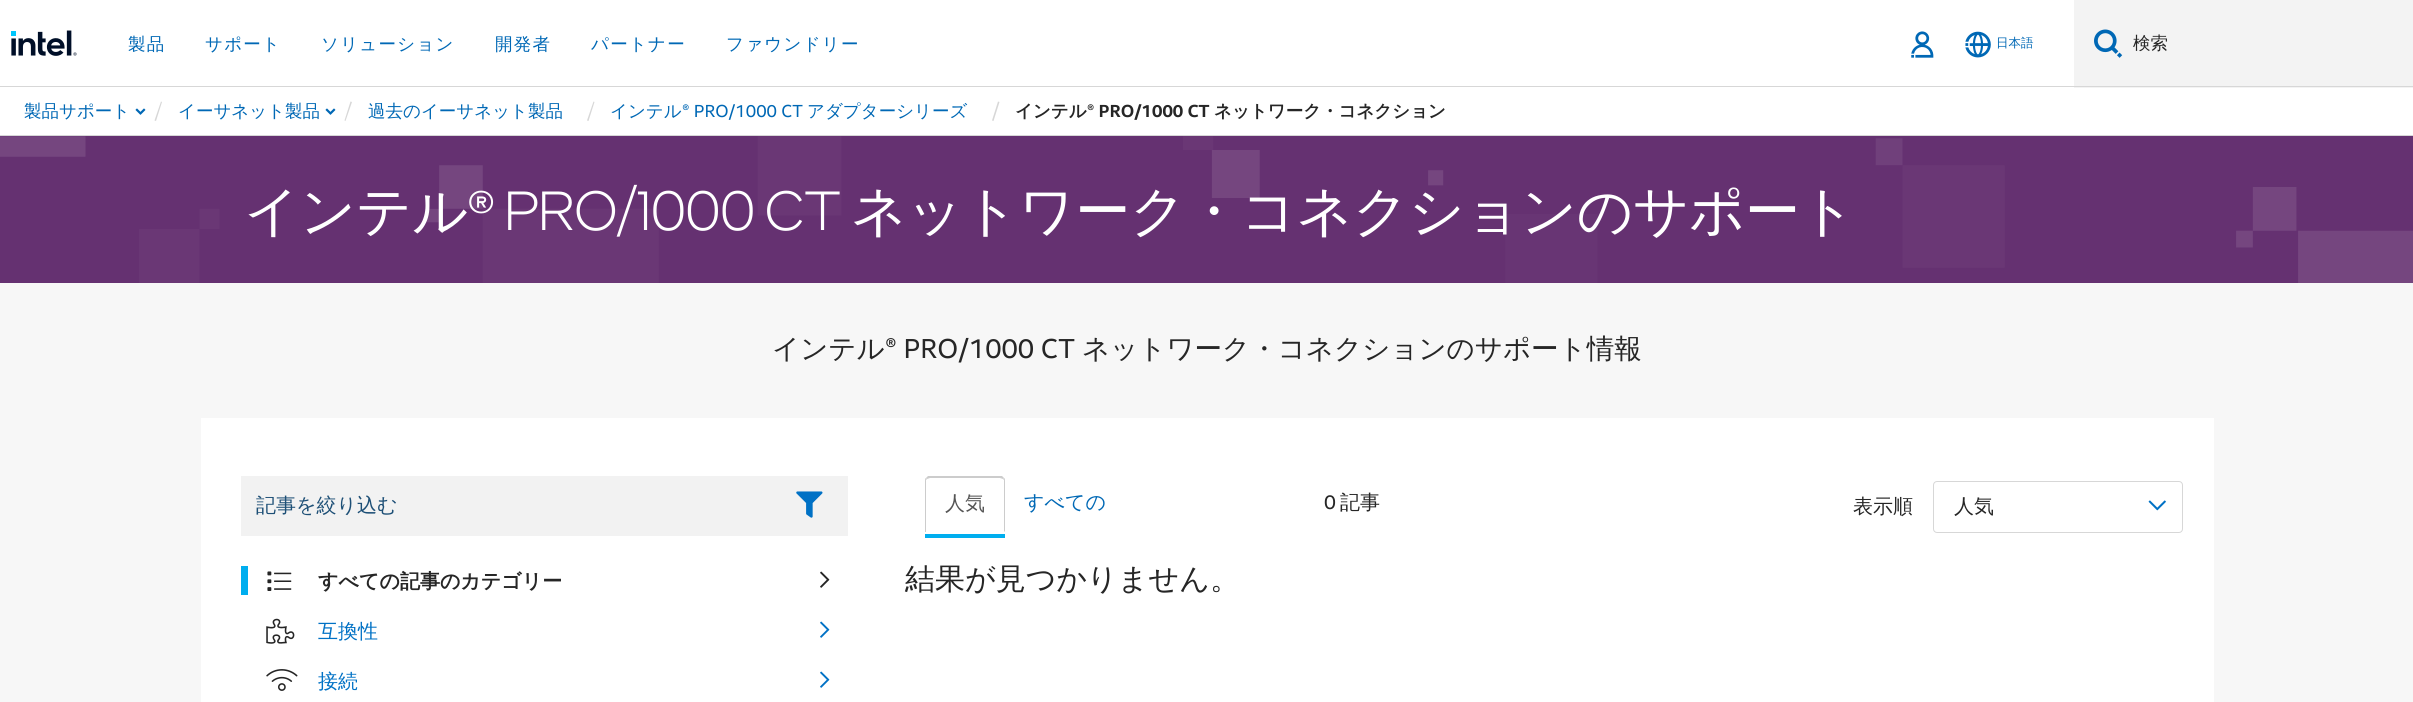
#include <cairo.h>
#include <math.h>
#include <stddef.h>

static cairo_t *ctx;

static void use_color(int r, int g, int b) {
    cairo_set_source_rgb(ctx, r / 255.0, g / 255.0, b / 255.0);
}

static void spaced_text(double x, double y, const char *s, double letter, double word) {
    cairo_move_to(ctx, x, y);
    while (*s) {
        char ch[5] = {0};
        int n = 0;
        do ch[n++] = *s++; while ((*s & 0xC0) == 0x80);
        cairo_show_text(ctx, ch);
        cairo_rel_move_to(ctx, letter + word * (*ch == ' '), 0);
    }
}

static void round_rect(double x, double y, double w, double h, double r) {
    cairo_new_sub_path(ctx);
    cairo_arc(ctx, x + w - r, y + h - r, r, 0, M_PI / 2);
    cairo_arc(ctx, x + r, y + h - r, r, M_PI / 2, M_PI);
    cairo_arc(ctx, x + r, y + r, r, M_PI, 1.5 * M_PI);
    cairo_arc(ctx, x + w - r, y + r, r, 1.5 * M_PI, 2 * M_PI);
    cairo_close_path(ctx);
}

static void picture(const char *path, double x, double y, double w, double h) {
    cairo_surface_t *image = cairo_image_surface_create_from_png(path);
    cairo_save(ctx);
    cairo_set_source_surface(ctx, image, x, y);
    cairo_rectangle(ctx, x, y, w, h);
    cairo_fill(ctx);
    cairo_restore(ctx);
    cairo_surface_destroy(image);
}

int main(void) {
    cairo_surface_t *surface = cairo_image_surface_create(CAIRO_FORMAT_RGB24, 2413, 702);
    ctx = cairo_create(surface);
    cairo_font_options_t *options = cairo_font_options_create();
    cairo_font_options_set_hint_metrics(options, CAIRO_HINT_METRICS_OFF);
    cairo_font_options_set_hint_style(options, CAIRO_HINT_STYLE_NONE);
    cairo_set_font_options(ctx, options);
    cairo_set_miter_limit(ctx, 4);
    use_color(255, 255, 255);
    cairo_paint(ctx);
    use_color(215, 215, 215);
    cairo_rectangle(ctx, 0, 86, 2074, 1);
    cairo_fill(ctx);
    picture("img1.png", 11, 30, 66, 26);
    cairo_select_font_face(ctx, "WenQuanYi Zen Hei Medium", CAIRO_FONT_SLANT_NORMAL, CAIRO_FONT_WEIGHT_NORMAL);
    cairo_set_font_size(ctx, 17.5);
    use_color(0, 104, 181);
    spaced_text(128, 50, "製品", 1.25, 0);
    spaced_text(205, 50, "サポート", 1.25, 0);
    spaced_text(321, 50, "ソリューション", 1.25, 0);
    spaced_text(495, 50, "開発者", 1.25, 0);
    spaced_text(591, 50, "パートナー", 1.25, 0);
    spaced_text(726, 50, "ファウンドリー", 1.25, 0);
    picture("img2.png", 1911, 31, 23, 27);
    picture("img3.png", 1965, 31, 26, 27);
    cairo_set_font_size(ctx, 12.5);
    cairo_move_to(ctx, 1996, 47);
    cairo_show_text(ctx, "日本語");
    use_color(243, 243, 243);
    cairo_rectangle(ctx, 2074, 0, 339, 88);
    cairo_fill(ctx);
    use_color(215, 215, 215);
    cairo_rectangle(ctx, 2074, 86, 339, 1);
    cairo_fill(ctx);
    picture("img4.png", 2094, 29, 29, 29);
    cairo_set_font_size(ctx, 17.5);
    use_color(38, 38, 38);
    cairo_move_to(ctx, 2133, 49);
    cairo_show_text(ctx, "検索");
    use_color(215, 215, 215);
    cairo_rectangle(ctx, 0, 135, 2413, 1);
    cairo_fill(ctx);
    use_color(0, 104, 181);
    cairo_move_to(ctx, 24, 117);
    cairo_show_text(ctx, "製品サポート");
    picture("img5.png", 135, 108, 11, 7);
    use_color(215, 215, 215);
    cairo_new_path(ctx);
    cairo_move_to(ctx, 161, 101.5);
    cairo_line_to(ctx, 162, 102);
    cairo_line_to(ctx, 156, 121);
    cairo_line_to(ctx, 154.5, 120.5);
    cairo_close_path(ctx);
    cairo_fill(ctx);
    use_color(0, 104, 181);
    cairo_move_to(ctx, 178, 117);
    cairo_show_text(ctx, "イーサネット製品");
    picture("img5.png", 325, 108, 11, 7);
    use_color(215, 215, 215);
    cairo_new_path(ctx);
    cairo_move_to(ctx, 350.5, 101.5);
    cairo_line_to(ctx, 352, 102);
    cairo_line_to(ctx, 345.5, 121);
    cairo_line_to(ctx, 344.5, 120.5);
    cairo_close_path(ctx);
    cairo_fill(ctx);
    use_color(0, 104, 181);
    cairo_move_to(ctx, 368, 117);
    cairo_show_text(ctx, "過去のイーサネット製品");
    use_color(215, 215, 215);
    cairo_new_path(ctx);
    cairo_move_to(ctx, 593.5, 101.5);
    cairo_line_to(ctx, 594.5, 102);
    cairo_line_to(ctx, 588.5, 121);
    cairo_line_to(ctx, 587, 120.5);
    cairo_close_path(ctx);
    cairo_fill(ctx);
    use_color(0, 104, 181);
    cairo_move_to(ctx, 610, 117);
    cairo_show_text(ctx, "インテル");
    cairo_select_font_face(ctx, "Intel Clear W", CAIRO_FONT_SLANT_NORMAL, CAIRO_FONT_WEIGHT_NORMAL);
    cairo_move_to(ctx, 682, 117);
    cairo_show_text(ctx, "® PRO/1000 CT");
    cairo_select_font_face(ctx, "WenQuanYi Zen Hei Medium", CAIRO_FONT_SLANT_NORMAL, CAIRO_FONT_WEIGHT_NORMAL);
    cairo_move_to(ctx, 807, 117);
    cairo_show_text(ctx, "アダプターシリーズ");
    use_color(215, 215, 215);
    cairo_new_path(ctx);
    cairo_move_to(ctx, 998, 101.5);
    cairo_line_to(ctx, 999.5, 102);
    cairo_line_to(ctx, 993.5, 121);
    cairo_line_to(ctx, 992, 120.5);
    cairo_close_path(ctx);
    cairo_fill(ctx);
    cairo_select_font_face(ctx, "WenQuanYi Zen Hei", CAIRO_FONT_SLANT_NORMAL, CAIRO_FONT_WEIGHT_BOLD);
    use_color(38, 38, 38);
    cairo_move_to(ctx, 1015, 117);
    cairo_show_text(ctx, "インテル");
    cairo_select_font_face(ctx, "Intel Clear W", CAIRO_FONT_SLANT_NORMAL, CAIRO_FONT_WEIGHT_BOLD);
    cairo_move_to(ctx, 1087, 117);
    cairo_show_text(ctx, "® PRO/1000 CT");
    cairo_select_font_face(ctx, "WenQuanYi Zen Hei", CAIRO_FONT_SLANT_NORMAL, CAIRO_FONT_WEIGHT_BOLD);
    cairo_move_to(ctx, 1214, 117);
    cairo_show_text(ctx, "ネットワーク・コネクション");
    use_color(247, 247, 247);
    cairo_rectangle(ctx, 0, 283, 2413, 419);
    cairo_fill(ctx);
    use_color(101, 49, 113);
    cairo_rectangle(ctx, 0, 136, 2413, 147);
    cairo_fill(ctx);
    picture("img6.png", 0, 136, 2413, 147);
    cairo_select_font_face(ctx, "WenQuanYi Zen Hei Medium", CAIRO_FONT_SLANT_NORMAL, CAIRO_FONT_WEIGHT_NORMAL);
    cairo_set_font_size(ctx, 55);
    use_color(255, 255, 255);
    spaced_text(244, 230, "インテル", -0.25, 0);
    cairo_select_font_face(ctx, "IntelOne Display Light", CAIRO_FONT_SLANT_NORMAL, CAIRO_FONT_WEIGHT_NORMAL);
    spaced_text(468, 230, "® PRO/1000 CT", -0.25, 0);
    cairo_select_font_face(ctx, "WenQuanYi Zen Hei Medium", CAIRO_FONT_SLANT_NORMAL, CAIRO_FONT_WEIGHT_NORMAL);
    spaced_text(851, 230, "ネットワーク・コネクションのサポート", -0.25, 0);
    cairo_set_font_size(ctx, 27.5);
    use_color(38, 38, 38);
    cairo_move_to(ctx, 772, 358);
    cairo_show_text(ctx, "インテル");
    cairo_select_font_face(ctx, "Intel Clear W", CAIRO_FONT_SLANT_NORMAL, CAIRO_FONT_WEIGHT_NORMAL);
    cairo_move_to(ctx, 885, 358);
    cairo_show_text(ctx, "® PRO/1000 CT");
    cairo_select_font_face(ctx, "WenQuanYi Zen Hei Medium", CAIRO_FONT_SLANT_NORMAL, CAIRO_FONT_WEIGHT_NORMAL);
    cairo_move_to(ctx, 1082, 358);
    cairo_show_text(ctx, "ネットワーク・コネクションのサポート情報");
    use_color(255, 255, 255);
    cairo_rectangle(ctx, 201, 418, 2013, 284);
    cairo_fill(ctx);
    use_color(242, 242, 242);
    cairo_rectangle(ctx, 241, 476, 607, 60);
    cairo_fill(ctx);
    cairo_set_font_size(ctx, 20);
    use_color(29, 79, 118);
    cairo_move_to(ctx, 256, 512);
    cairo_show_text(ctx, "記事を絞り込む");
    picture("img7.png", 796, 491, 27, 27);
    use_color(0, 174, 239);
    cairo_rectangle(ctx, 241, 566, 7, 29);
    cairo_fill(ctx);
    picture("img8.png", 267, 571, 25, 20);
    cairo_select_font_face(ctx, "WenQuanYi Zen Hei", CAIRO_FONT_SLANT_NORMAL, CAIRO_FONT_WEIGHT_BOLD);
    use_color(38, 38, 38);
    cairo_move_to(ctx, 318, 588);
    cairo_show_text(ctx, "すべての記事のカテゴリー");
    picture("img9.png", 820, 571, 10, 17);
    picture("img10.png", 266, 618, 29, 26);
    cairo_select_font_face(ctx, "WenQuanYi Zen Hei Medium", CAIRO_FONT_SLANT_NORMAL, CAIRO_FONT_WEIGHT_NORMAL);
    use_color(0, 113, 197);
    cairo_move_to(ctx, 318, 638);
    cairo_show_text(ctx, "互換性");
    picture("img11.png", 820, 621, 10, 17);
    picture("img12.png", 266, 669, 32, 22);
    cairo_move_to(ctx, 318, 688);
    cairo_show_text(ctx, "接続");
    picture("img11.png", 820, 671, 10, 17);
    use_color(0, 174, 239);
    cairo_rectangle(ctx, 925, 534, 80, 4);
    cairo_fill(ctx);
    use_color(204, 204, 204);
    cairo_new_path(ctx);
    cairo_move_to(ctx, 930, 478);
    cairo_line_to(ctx, 927, 479);
    cairo_line_to(ctx, 926, 478);
    cairo_line_to(ctx, 928, 476);
    cairo_line_to(ctx, 1002, 476);
    cairo_line_to(ctx, 1004, 478);
    cairo_line_to(ctx, 1003, 479);
    cairo_line_to(ctx, 1000, 478);
    cairo_close_path(ctx);
    cairo_fill(ctx);
    cairo_new_path(ctx);
    cairo_move_to(ctx, 1005, 532);
    cairo_line_to(ctx, 1005, 481);
    cairo_curve_to(ctx, 1005, 480, 1005, 478, 1004, 478);
    cairo_line_to(ctx, 1003, 479);
    cairo_line_to(ctx, 1004, 480);
    cairo_line_to(ctx, 1004, 531);
    cairo_close_path(ctx);
    cairo_fill(ctx);
    cairo_new_path(ctx);
    cairo_move_to(ctx, 925, 481);
    cairo_line_to(ctx, 925, 532);
    cairo_line_to(ctx, 926, 532);
    cairo_line_to(ctx, 926, 531);
    cairo_line_to(ctx, 926, 480);
    cairo_line_to(ctx, 927, 479);
    cairo_line_to(ctx, 926, 478);
    cairo_curve_to(ctx, 925, 478, 925, 480, 925, 481);
    cairo_close_path(ctx);
    cairo_fill(ctx);
    use_color(85, 85, 85);
    cairo_move_to(ctx, 945, 510);
    cairo_show_text(ctx, "人気");
    use_color(0, 104, 181);
    cairo_move_to(ctx, 1024, 509);
    cairo_show_text(ctx, "すべての");
    cairo_select_font_face(ctx, "Intel Clear W", CAIRO_FONT_SLANT_NORMAL, CAIRO_FONT_WEIGHT_NORMAL);
    use_color(38, 38, 38);
    cairo_move_to(ctx, 1324, 509);
    cairo_show_text(ctx, "0");
    cairo_select_font_face(ctx, "WenQuanYi Zen Hei Medium", CAIRO_FONT_SLANT_NORMAL, CAIRO_FONT_WEIGHT_NORMAL);
    cairo_move_to(ctx, 1340, 509);
    cairo_show_text(ctx, "記事");
    cairo_move_to(ctx, 1853, 513);
    cairo_show_text(ctx, "表示順");
    round_rect(1933.5, 481.5, 249, 51, 3.5);
    use_color(215, 215, 215);
    cairo_set_line_width(ctx, 1);
    cairo_stroke(ctx);
    use_color(38, 38, 38);
    cairo_move_to(ctx, 1954, 513);
    cairo_show_text(ctx, "人気");
    picture("img13.png", 2148, 500, 18, 11);
    cairo_set_font_size(ctx, 30);
    cairo_move_to(ctx, 905, 589);
    cairo_show_text(ctx, "結果が見つかりません。");
    cairo_surface_write_to_png(surface, "result.png");
    cairo_font_options_destroy(options);
    cairo_destroy(ctx);
    cairo_surface_destroy(surface);
    return 0;
}
